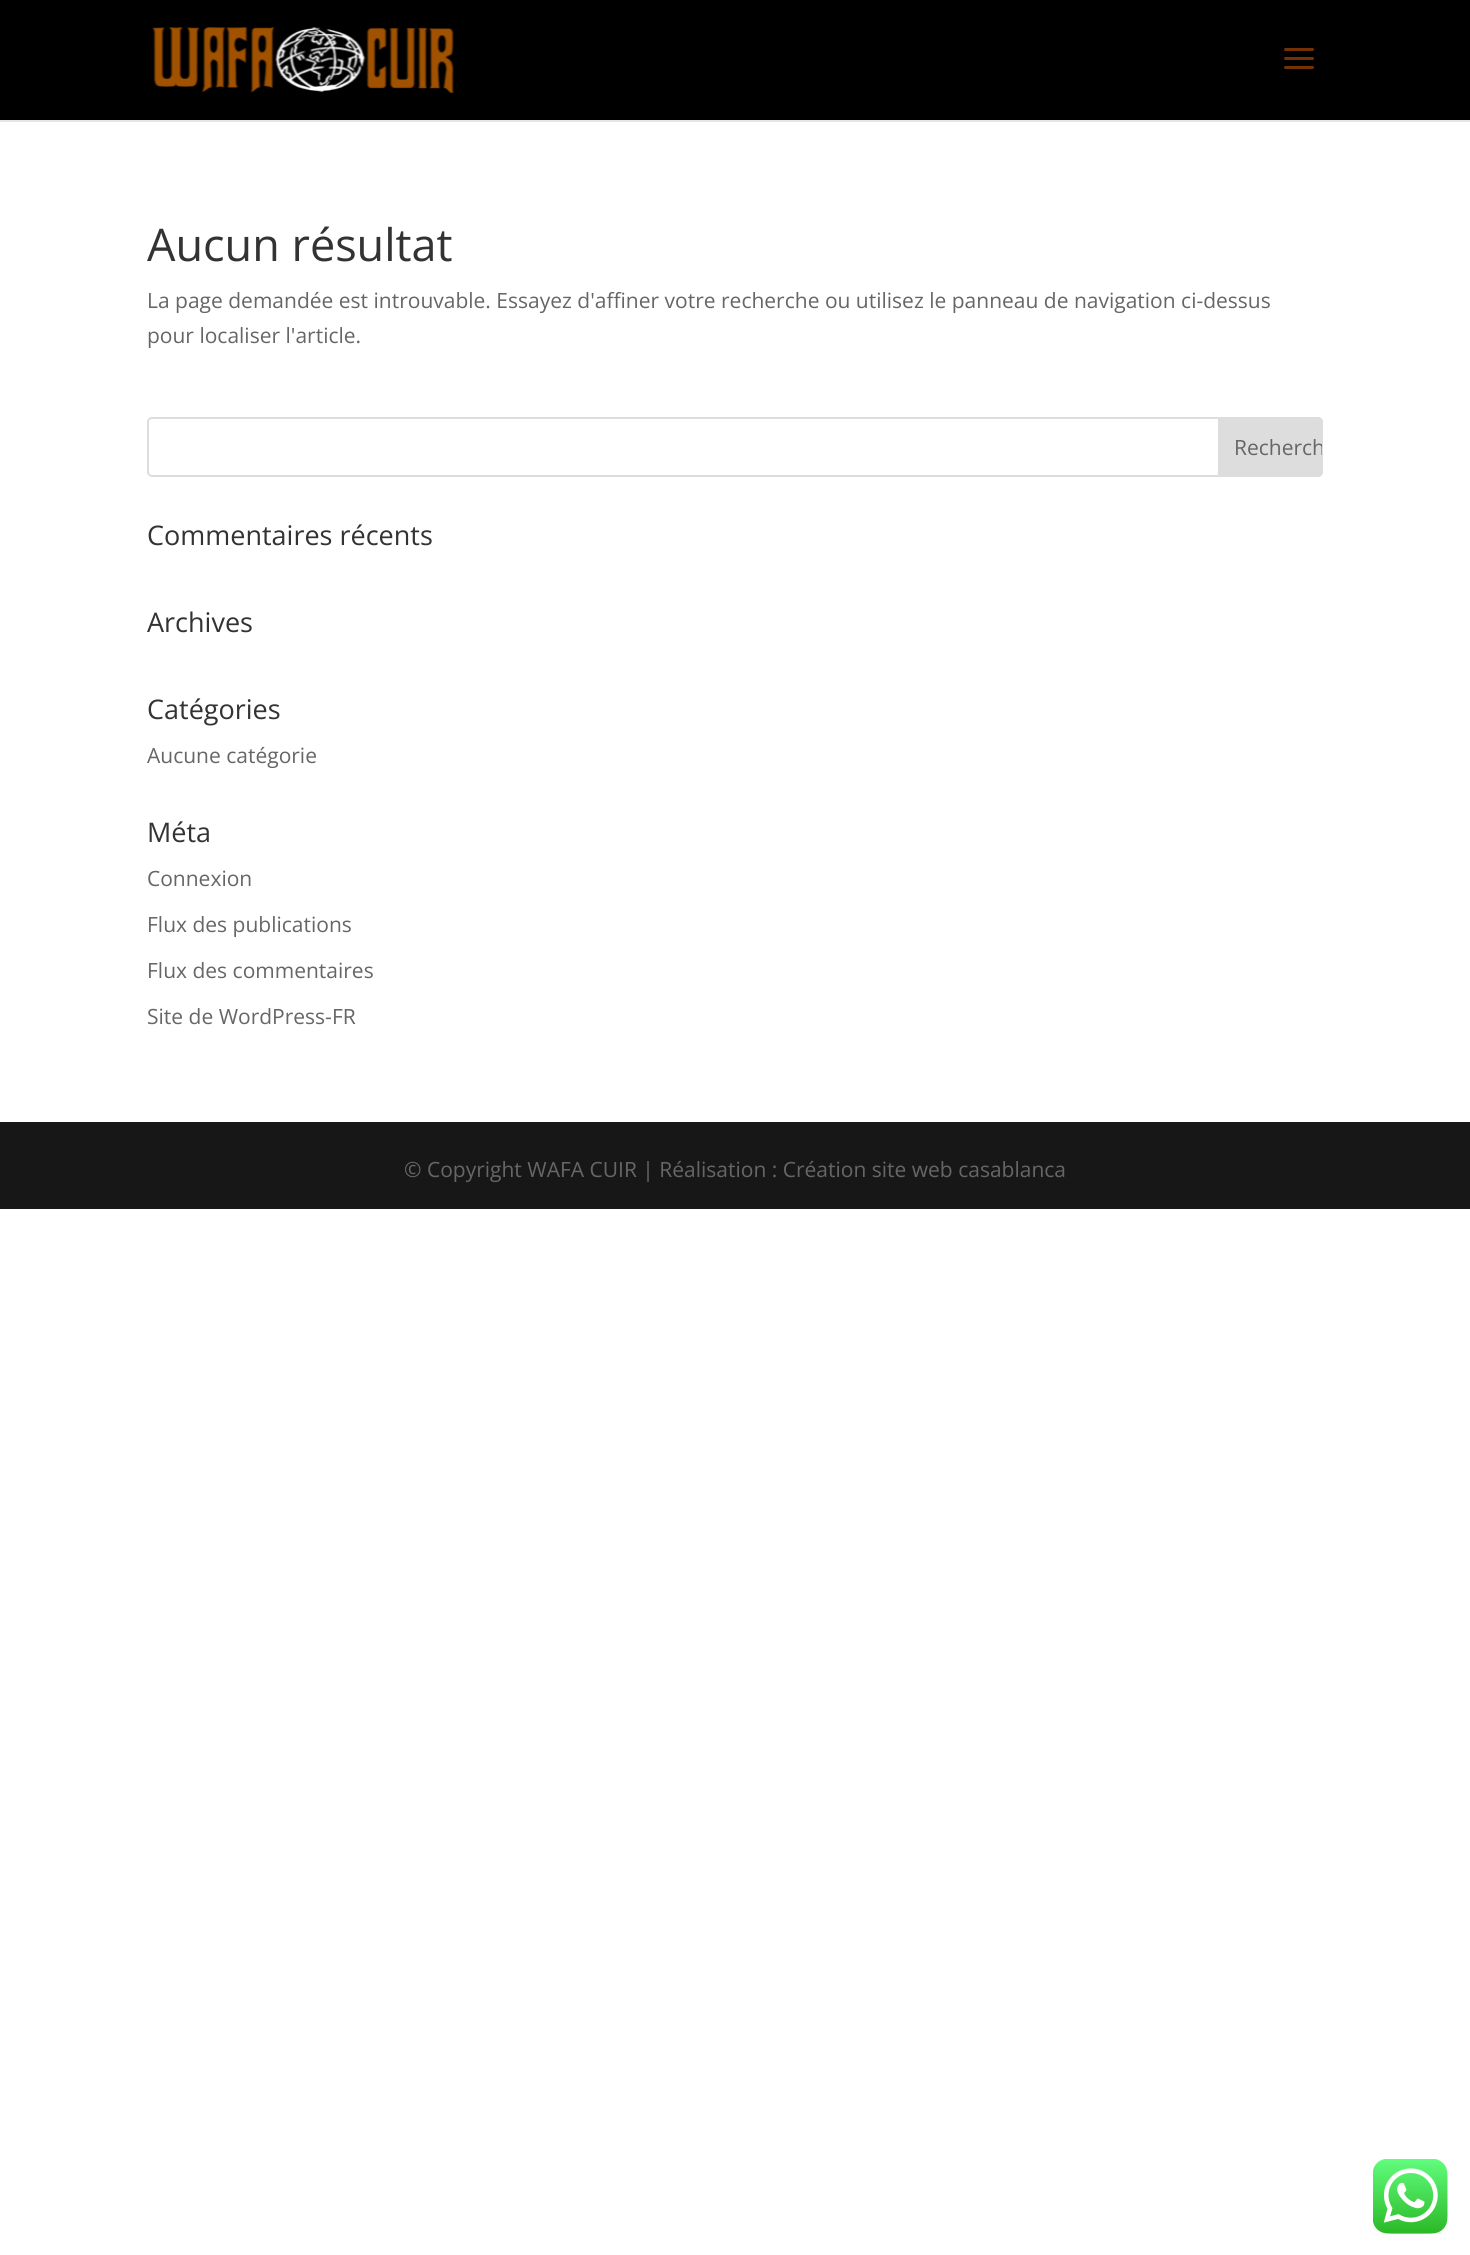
#include <cairo.h>
#include <math.h>
#include <stddef.h>

static cairo_t *ctx;

static void use_color(int r, int g, int b) {
    cairo_set_source_rgb(ctx, r / 255.0, g / 255.0, b / 255.0);
}

static void round_rect(double x, double y, double w, double h, double r) {
    cairo_new_sub_path(ctx);
    cairo_arc(ctx, x + w - r, y + h - r, r, 0, M_PI / 2);
    cairo_arc(ctx, x + r, y + h - r, r, M_PI / 2, M_PI);
    cairo_arc(ctx, x + r, y + r, r, M_PI, 1.5 * M_PI);
    cairo_arc(ctx, x + w - r, y + r, r, 1.5 * M_PI, 2 * M_PI);
    cairo_close_path(ctx);
}

static void picture(const char *path, double x, double y, double w, double h) {
    cairo_surface_t *image = cairo_image_surface_create_from_png(path);
    cairo_save(ctx);
    cairo_set_source_surface(ctx, image, x, y);
    cairo_rectangle(ctx, x, y, w, h);
    cairo_fill(ctx);
    cairo_restore(ctx);
    cairo_surface_destroy(image);
}

int main(void) {
    cairo_surface_t *surface = cairo_image_surface_create(CAIRO_FORMAT_RGB24, 1470, 2255);
    ctx = cairo_create(surface);
    cairo_font_options_t *options = cairo_font_options_create();
    cairo_font_options_set_hint_metrics(options, CAIRO_HINT_METRICS_OFF);
    cairo_font_options_set_hint_style(options, CAIRO_HINT_STYLE_NONE);
    cairo_set_font_options(ctx, options);
    cairo_set_miter_limit(ctx, 4);
    use_color(255, 255, 255);
    cairo_paint(ctx);
    use_color(230, 230, 230);
    cairo_rectangle(ctx, 0, 120, 1470, 2);
    cairo_fill(ctx);
    use_color(0, 0, 0);
    cairo_rectangle(ctx, 0, 0, 1470, 120);
    cairo_fill(ctx);
    picture("img1.png", 152, 27, 302, 66);
    picture("img2.png", 1284, 48, 30, 21);
    cairo_select_font_face(ctx, "Open Sans", CAIRO_FONT_SLANT_NORMAL, CAIRO_FONT_WEIGHT_NORMAL);
    cairo_set_font_size(ctx, 45);
    use_color(51, 51, 51);
    cairo_move_to(ctx, 147, 261);
    cairo_show_text(ctx, "Aucun résultat");
    cairo_set_font_size(ctx, 21);
    use_color(102, 102, 102);
    cairo_move_to(ctx, 147, 308);
    cairo_show_text(ctx, "La page demandée est introuvable. Essayez d'affiner votre recherche ou utilisez le panneau de navigation ci-dessus");
    cairo_move_to(ctx, 147, 343);
    cairo_show_text(ctx, "pour localiser l'article.");
    round_rect(148, 418, 1174, 58, 4);
    use_color(221, 221, 221);
    cairo_stroke(ctx);
    cairo_new_path(ctx);
    cairo_move_to(ctx, 1219, 418);
    cairo_line_to(ctx, 1318, 418);
    cairo_curve_to(ctx, 1320, 418, 1322, 420, 1322, 422);
    cairo_line_to(ctx, 1322, 472);
    cairo_curve_to(ctx, 1322, 474, 1320, 476, 1318, 476);
    cairo_line_to(ctx, 1219, 476);
    cairo_close_path(ctx);
    cairo_fill_preserve(ctx);
    cairo_stroke(ctx);
    cairo_save(ctx);
    cairo_new_path(ctx);
    cairo_move_to(ctx, 1220, 419);
    cairo_line_to(ctx, 1319, 419);
    cairo_curve_to(ctx, 1320.5, 419, 1322, 420.5, 1322, 422);
    cairo_line_to(ctx, 1322, 473);
    cairo_curve_to(ctx, 1322, 474.5, 1320.5, 476, 1319, 476);
    cairo_line_to(ctx, 1220, 476);
    cairo_close_path(ctx);
    cairo_clip(ctx);
    use_color(102, 102, 102);
    cairo_move_to(ctx, 1234, 455);
    cairo_show_text(ctx, "Recherch");
    cairo_restore(ctx);
    cairo_set_font_size(ctx, 27);
    use_color(51, 51, 51);
    cairo_move_to(ctx, 147, 545);
    cairo_show_text(ctx, "Commentaires récents");
    cairo_move_to(ctx, 147, 632);
    cairo_show_text(ctx, "Archives");
    cairo_move_to(ctx, 147, 719);
    cairo_show_text(ctx, "Catégories");
    cairo_set_font_size(ctx, 21);
    use_color(102, 102, 102);
    cairo_move_to(ctx, 147, 763);
    cairo_show_text(ctx, "Aucune catégorie");
    cairo_set_font_size(ctx, 27);
    use_color(51, 51, 51);
    cairo_move_to(ctx, 147, 842);
    cairo_show_text(ctx, "Méta");
    cairo_set_font_size(ctx, 21);
    use_color(102, 102, 102);
    cairo_move_to(ctx, 147, 886);
    cairo_show_text(ctx, "Connexion");
    cairo_move_to(ctx, 147, 932);
    cairo_show_text(ctx, "Flux des publications");
    cairo_move_to(ctx, 147, 978);
    cairo_show_text(ctx, "Flux des commentaires");
    cairo_move_to(ctx, 147, 1024);
    cairo_show_text(ctx, "Site de WordPress-FR");
    use_color(23, 23, 23);
    cairo_rectangle(ctx, 0, 1122, 1470, 87);
    cairo_fill(ctx);
    use_color(102, 102, 102);
    cairo_move_to(ctx, 404, 1177);
    cairo_show_text(ctx, "© Copyright WAFA CUIR | Réalisation : Création site web casablanca");
    picture("img3.png", 1373, 2159, 75, 75);
    cairo_surface_write_to_png(surface, "result.png");
    cairo_font_options_destroy(options);
    cairo_destroy(ctx);
    cairo_surface_destroy(surface);
    return 0;
}
